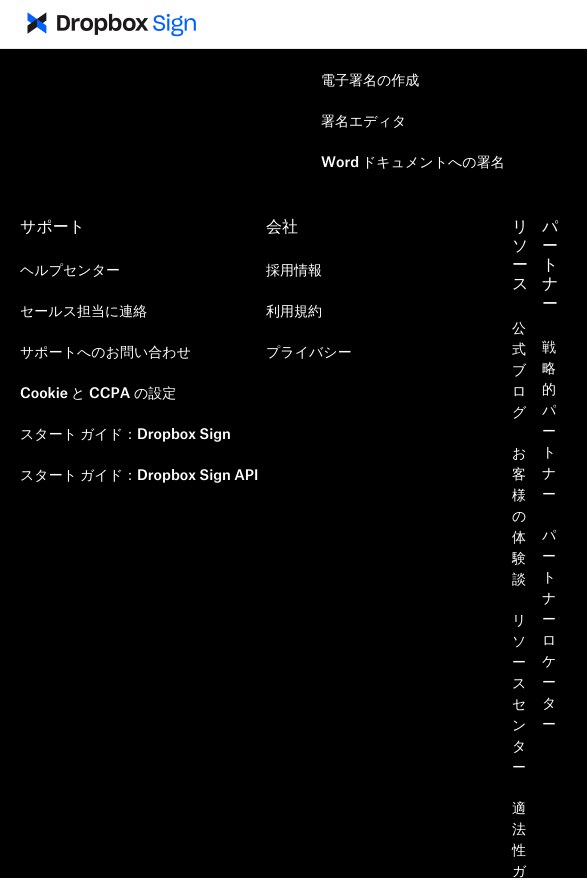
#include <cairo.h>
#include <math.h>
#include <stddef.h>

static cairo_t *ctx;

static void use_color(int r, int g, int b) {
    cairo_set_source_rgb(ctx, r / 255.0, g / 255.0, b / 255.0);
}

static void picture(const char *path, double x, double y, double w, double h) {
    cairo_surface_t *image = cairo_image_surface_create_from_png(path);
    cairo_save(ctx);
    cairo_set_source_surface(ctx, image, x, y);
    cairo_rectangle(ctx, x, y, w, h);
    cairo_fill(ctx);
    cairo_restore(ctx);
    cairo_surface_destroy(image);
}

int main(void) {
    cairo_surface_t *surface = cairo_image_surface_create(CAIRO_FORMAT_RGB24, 587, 878);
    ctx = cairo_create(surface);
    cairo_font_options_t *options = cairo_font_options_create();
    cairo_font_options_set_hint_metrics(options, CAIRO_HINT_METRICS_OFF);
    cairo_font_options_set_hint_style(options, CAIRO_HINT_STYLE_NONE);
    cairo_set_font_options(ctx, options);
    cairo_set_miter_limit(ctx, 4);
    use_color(0, 0, 0);
    cairo_paint(ctx);
    use_color(255, 255, 255);
    cairo_rectangle(ctx, 0, 0, 587, 48);
    cairo_fill(ctx);
    use_color(237, 233, 227);
    cairo_rectangle(ctx, 0, 48, 587, 1);
    cairo_fill(ctx);
    picture("img1.png", 27, 12, 169, 25);
    cairo_select_font_face(ctx, "WenQuanYi Zen Hei Medium", CAIRO_FONT_SLANT_NORMAL, CAIRO_FONT_WEIGHT_NORMAL);
    cairo_set_font_size(ctx, 14);
    use_color(255, 255, 255);
    cairo_move_to(ctx, 321, 85);
    cairo_show_text(ctx, "電子署名の作成");
    cairo_move_to(ctx, 321, 126);
    cairo_show_text(ctx, "署名エディタ");
    cairo_select_font_face(ctx, "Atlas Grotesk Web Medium", CAIRO_FONT_SLANT_NORMAL, CAIRO_FONT_WEIGHT_NORMAL);
    cairo_move_to(ctx, 321, 167);
    cairo_show_text(ctx, "Word");
    cairo_select_font_face(ctx, "WenQuanYi Zen Hei Medium", CAIRO_FONT_SLANT_NORMAL, CAIRO_FONT_WEIGHT_NORMAL);
    cairo_move_to(ctx, 362, 167);
    cairo_show_text(ctx, "ドキュメントへの署名");
    cairo_set_font_size(ctx, 16);
    cairo_move_to(ctx, 20, 232);
    cairo_show_text(ctx, "サポート");
    cairo_set_font_size(ctx, 14);
    cairo_move_to(ctx, 20, 275);
    cairo_show_text(ctx, "ヘルプセンター");
    cairo_move_to(ctx, 20, 316);
    cairo_show_text(ctx, "セールス担当に連絡");
    cairo_move_to(ctx, 20, 357);
    cairo_show_text(ctx, "サポートへのお問い合わせ");
    cairo_select_font_face(ctx, "Atlas Grotesk Web Medium", CAIRO_FONT_SLANT_NORMAL, CAIRO_FONT_WEIGHT_NORMAL);
    cairo_move_to(ctx, 20, 398);
    cairo_show_text(ctx, "Cookie");
    cairo_select_font_face(ctx, "WenQuanYi Zen Hei Medium", CAIRO_FONT_SLANT_NORMAL, CAIRO_FONT_WEIGHT_NORMAL);
    cairo_move_to(ctx, 71, 398);
    cairo_show_text(ctx, "と");
    cairo_select_font_face(ctx, "Atlas Grotesk Web Medium", CAIRO_FONT_SLANT_NORMAL, CAIRO_FONT_WEIGHT_NORMAL);
    cairo_move_to(ctx, 89, 398);
    cairo_show_text(ctx, "CCPA");
    cairo_select_font_face(ctx, "WenQuanYi Zen Hei Medium", CAIRO_FONT_SLANT_NORMAL, CAIRO_FONT_WEIGHT_NORMAL);
    cairo_move_to(ctx, 134, 398);
    cairo_show_text(ctx, "の設定");
    cairo_move_to(ctx, 20, 439);
    cairo_show_text(ctx, "スタート");
    cairo_move_to(ctx, 80, 439);
    cairo_show_text(ctx, "ガイド：");
    cairo_select_font_face(ctx, "Atlas Grotesk Web Medium", CAIRO_FONT_SLANT_NORMAL, CAIRO_FONT_WEIGHT_NORMAL);
    cairo_move_to(ctx, 137, 439);
    cairo_show_text(ctx, "Dropbox Sign");
    cairo_select_font_face(ctx, "WenQuanYi Zen Hei Medium", CAIRO_FONT_SLANT_NORMAL, CAIRO_FONT_WEIGHT_NORMAL);
    cairo_move_to(ctx, 20, 480);
    cairo_show_text(ctx, "スタート");
    cairo_move_to(ctx, 80, 480);
    cairo_show_text(ctx, "ガイド：");
    cairo_select_font_face(ctx, "Atlas Grotesk Web Medium", CAIRO_FONT_SLANT_NORMAL, CAIRO_FONT_WEIGHT_NORMAL);
    cairo_move_to(ctx, 137, 480);
    cairo_show_text(ctx, "Dropbox Sign API");
    cairo_select_font_face(ctx, "WenQuanYi Zen Hei Medium", CAIRO_FONT_SLANT_NORMAL, CAIRO_FONT_WEIGHT_NORMAL);
    cairo_set_font_size(ctx, 16);
    cairo_move_to(ctx, 266, 232);
    cairo_show_text(ctx, "会社");
    cairo_set_font_size(ctx, 14);
    cairo_move_to(ctx, 266, 275);
    cairo_show_text(ctx, "採用情報");
    cairo_move_to(ctx, 266, 316);
    cairo_show_text(ctx, "利用規約");
    cairo_move_to(ctx, 266, 357);
    cairo_show_text(ctx, "プライバシー");
    cairo_set_font_size(ctx, 16);
    cairo_move_to(ctx, 512, 232);
    cairo_show_text(ctx, "リ");
    cairo_move_to(ctx, 512, 251);
    cairo_show_text(ctx, "ソ");
    cairo_move_to(ctx, 512, 270);
    cairo_show_text(ctx, "ー");
    cairo_move_to(ctx, 512, 289);
    cairo_show_text(ctx, "ス");
    cairo_set_font_size(ctx, 14);
    cairo_move_to(ctx, 512, 333);
    cairo_show_text(ctx, "公");
    cairo_move_to(ctx, 512, 354);
    cairo_show_text(ctx, "式");
    cairo_move_to(ctx, 512, 375);
    cairo_show_text(ctx, "ブ");
    cairo_move_to(ctx, 512, 396);
    cairo_show_text(ctx, "ロ");
    cairo_move_to(ctx, 512, 417);
    cairo_show_text(ctx, "グ");
    cairo_move_to(ctx, 512, 458);
    cairo_show_text(ctx, "お");
    cairo_move_to(ctx, 512, 479);
    cairo_show_text(ctx, "客");
    cairo_move_to(ctx, 512, 500);
    cairo_show_text(ctx, "様");
    cairo_move_to(ctx, 512, 521);
    cairo_show_text(ctx, "の");
    cairo_move_to(ctx, 512, 542);
    cairo_show_text(ctx, "体");
    cairo_move_to(ctx, 512, 563);
    cairo_show_text(ctx, "験");
    cairo_move_to(ctx, 512, 584);
    cairo_show_text(ctx, "談");
    cairo_move_to(ctx, 512, 625);
    cairo_show_text(ctx, "リ");
    cairo_move_to(ctx, 512, 646);
    cairo_show_text(ctx, "ソ");
    cairo_move_to(ctx, 512, 667);
    cairo_show_text(ctx, "ー");
    cairo_move_to(ctx, 512, 688);
    cairo_show_text(ctx, "ス");
    cairo_move_to(ctx, 512, 709);
    cairo_show_text(ctx, "セ");
    cairo_move_to(ctx, 512, 730);
    cairo_show_text(ctx, "ン");
    cairo_move_to(ctx, 512, 751);
    cairo_show_text(ctx, "タ");
    cairo_move_to(ctx, 512, 772);
    cairo_show_text(ctx, "ー");
    cairo_move_to(ctx, 512, 813);
    cairo_show_text(ctx, "適");
    cairo_move_to(ctx, 512, 834);
    cairo_show_text(ctx, "法");
    cairo_move_to(ctx, 512, 855);
    cairo_show_text(ctx, "性");
    cairo_move_to(ctx, 512, 876);
    cairo_show_text(ctx, "ガ");
    cairo_set_font_size(ctx, 16);
    cairo_move_to(ctx, 542, 232);
    cairo_show_text(ctx, "パ");
    cairo_move_to(ctx, 542, 251);
    cairo_show_text(ctx, "ー");
    cairo_move_to(ctx, 542, 270);
    cairo_show_text(ctx, "ト");
    cairo_move_to(ctx, 542, 289);
    cairo_show_text(ctx, "ナ");
    cairo_move_to(ctx, 542, 309);
    cairo_show_text(ctx, "ー");
    cairo_set_font_size(ctx, 14);
    cairo_move_to(ctx, 542, 352);
    cairo_show_text(ctx, "戦");
    cairo_move_to(ctx, 542, 373);
    cairo_show_text(ctx, "略");
    cairo_move_to(ctx, 542, 394);
    cairo_show_text(ctx, "的");
    cairo_move_to(ctx, 542, 415);
    cairo_show_text(ctx, "パ");
    cairo_move_to(ctx, 542, 436);
    cairo_show_text(ctx, "ー");
    cairo_move_to(ctx, 542, 457);
    cairo_show_text(ctx, "ト");
    cairo_move_to(ctx, 542, 478);
    cairo_show_text(ctx, "ナ");
    cairo_move_to(ctx, 542, 499);
    cairo_show_text(ctx, "ー");
    cairo_move_to(ctx, 542, 540);
    cairo_show_text(ctx, "パ");
    cairo_move_to(ctx, 542, 561);
    cairo_show_text(ctx, "ー");
    cairo_move_to(ctx, 542, 582);
    cairo_show_text(ctx, "ト");
    cairo_move_to(ctx, 542, 603);
    cairo_show_text(ctx, "ナ");
    cairo_move_to(ctx, 542, 624);
    cairo_show_text(ctx, "ー");
    cairo_move_to(ctx, 542, 645);
    cairo_show_text(ctx, "ロ");
    cairo_move_to(ctx, 542, 666);
    cairo_show_text(ctx, "ケ");
    cairo_move_to(ctx, 542, 687);
    cairo_show_text(ctx, "ー");
    cairo_move_to(ctx, 542, 708);
    cairo_show_text(ctx, "タ");
    cairo_move_to(ctx, 542, 729);
    cairo_show_text(ctx, "ー");
    cairo_surface_write_to_png(surface, "result.png");
    cairo_font_options_destroy(options);
    cairo_destroy(ctx);
    cairo_surface_destroy(surface);
    return 0;
}
